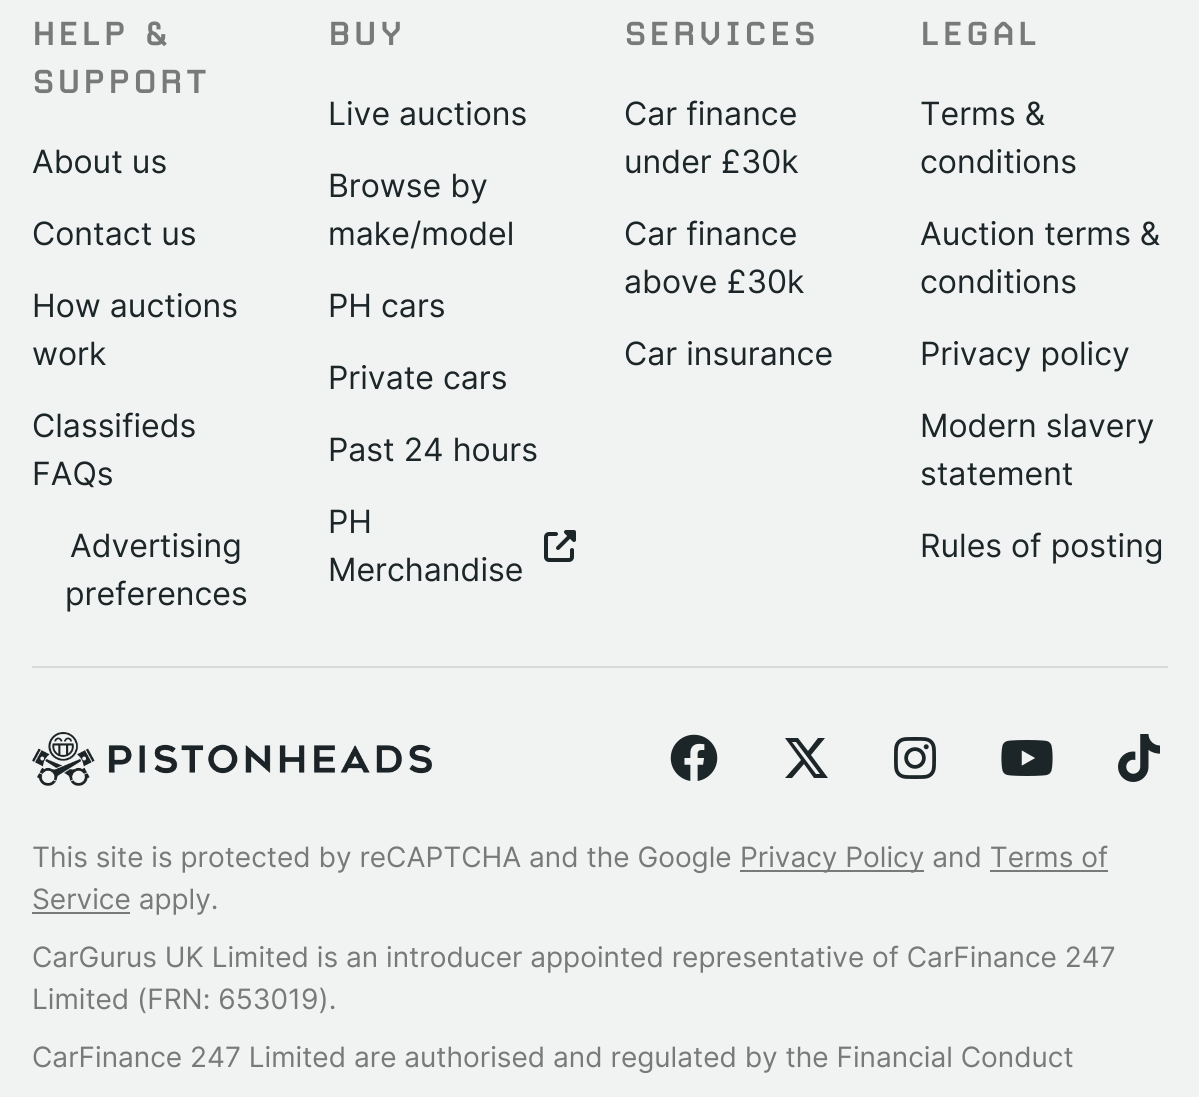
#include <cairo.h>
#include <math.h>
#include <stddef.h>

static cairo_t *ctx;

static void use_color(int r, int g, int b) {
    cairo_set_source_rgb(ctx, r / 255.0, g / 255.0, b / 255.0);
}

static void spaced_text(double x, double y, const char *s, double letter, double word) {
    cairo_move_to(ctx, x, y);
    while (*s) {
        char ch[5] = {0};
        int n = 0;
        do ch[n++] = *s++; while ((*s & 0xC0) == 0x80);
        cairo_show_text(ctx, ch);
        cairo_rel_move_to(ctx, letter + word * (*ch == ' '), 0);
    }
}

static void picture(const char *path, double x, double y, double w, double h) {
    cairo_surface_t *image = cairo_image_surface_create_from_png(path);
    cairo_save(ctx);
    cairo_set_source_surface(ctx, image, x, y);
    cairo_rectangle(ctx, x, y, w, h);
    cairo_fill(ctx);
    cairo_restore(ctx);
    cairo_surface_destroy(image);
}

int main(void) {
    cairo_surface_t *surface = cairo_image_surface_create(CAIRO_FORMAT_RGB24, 1199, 1097);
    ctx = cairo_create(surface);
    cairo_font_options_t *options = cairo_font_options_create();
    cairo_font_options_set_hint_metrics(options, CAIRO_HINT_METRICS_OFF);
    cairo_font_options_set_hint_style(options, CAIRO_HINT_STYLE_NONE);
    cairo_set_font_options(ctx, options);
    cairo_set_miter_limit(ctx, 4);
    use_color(241, 242, 242);
    cairo_paint(ctx);
    use_color(217, 217, 217);
    cairo_rectangle(ctx, 32, 666, 1136, 2);
    cairo_fill(ctx);
    cairo_select_font_face(ctx, "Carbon", CAIRO_FONT_SLANT_NORMAL, CAIRO_FONT_WEIGHT_BOLD);
    cairo_set_font_size(ctx, 40);
    use_color(121, 121, 121);
    spaced_text(32, 45, "HELP &", 2, 0);
    spaced_text(32, 93, "SUPPORT", 2, 0);
    cairo_select_font_face(ctx, "Inter", CAIRO_FONT_SLANT_NORMAL, CAIRO_FONT_WEIGHT_NORMAL);
    cairo_set_font_size(ctx, 32);
    use_color(28, 37, 39);
    cairo_move_to(ctx, 32, 173);
    cairo_show_text(ctx, "About us");
    cairo_move_to(ctx, 32, 245);
    cairo_show_text(ctx, "Contact us");
    cairo_move_to(ctx, 32, 317);
    cairo_show_text(ctx, "How auctions");
    cairo_move_to(ctx, 32, 365);
    cairo_show_text(ctx, "work");
    cairo_move_to(ctx, 32, 437);
    cairo_show_text(ctx, "Classifieds");
    cairo_move_to(ctx, 32, 485);
    cairo_show_text(ctx, "FAQs");
    cairo_move_to(ctx, 70, 557);
    cairo_show_text(ctx, "Advertising");
    cairo_move_to(ctx, 65, 605);
    cairo_show_text(ctx, "preferences");
    cairo_select_font_face(ctx, "Carbon", CAIRO_FONT_SLANT_NORMAL, CAIRO_FONT_WEIGHT_BOLD);
    cairo_set_font_size(ctx, 40);
    use_color(121, 121, 121);
    spaced_text(328, 45, "BUY", 2, 0);
    cairo_select_font_face(ctx, "Inter", CAIRO_FONT_SLANT_NORMAL, CAIRO_FONT_WEIGHT_NORMAL);
    cairo_set_font_size(ctx, 32);
    use_color(28, 37, 39);
    cairo_move_to(ctx, 328, 125);
    cairo_show_text(ctx, "Live auctions");
    cairo_move_to(ctx, 328, 197);
    cairo_show_text(ctx, "Browse by");
    cairo_move_to(ctx, 328, 245);
    cairo_show_text(ctx, "make/model");
    cairo_move_to(ctx, 328, 317);
    cairo_show_text(ctx, "PH cars");
    cairo_move_to(ctx, 328, 389);
    cairo_show_text(ctx, "Private cars");
    cairo_move_to(ctx, 328, 461);
    cairo_show_text(ctx, "Past 24 hours");
    cairo_move_to(ctx, 328, 533);
    cairo_show_text(ctx, "PH");
    cairo_move_to(ctx, 328, 581);
    cairo_show_text(ctx, "Merchandise");
    picture("img1.png", 544, 530, 32, 32);
    cairo_select_font_face(ctx, "Carbon", CAIRO_FONT_SLANT_NORMAL, CAIRO_FONT_WEIGHT_BOLD);
    cairo_set_font_size(ctx, 40);
    use_color(121, 121, 121);
    spaced_text(624, 45, "SERVICES", 2, 0);
    cairo_select_font_face(ctx, "Inter", CAIRO_FONT_SLANT_NORMAL, CAIRO_FONT_WEIGHT_NORMAL);
    cairo_set_font_size(ctx, 32);
    use_color(28, 37, 39);
    cairo_move_to(ctx, 624, 125);
    cairo_show_text(ctx, "Car finance");
    cairo_move_to(ctx, 624, 173);
    cairo_show_text(ctx, "under £30k");
    cairo_move_to(ctx, 624, 245);
    cairo_show_text(ctx, "Car finance");
    cairo_move_to(ctx, 624, 293);
    cairo_show_text(ctx, "above £30k");
    cairo_move_to(ctx, 624, 365);
    cairo_show_text(ctx, "Car insurance");
    cairo_select_font_face(ctx, "Carbon", CAIRO_FONT_SLANT_NORMAL, CAIRO_FONT_WEIGHT_BOLD);
    cairo_set_font_size(ctx, 40);
    use_color(121, 121, 121);
    spaced_text(920, 45, "LEGAL", 2, 0);
    cairo_select_font_face(ctx, "Inter", CAIRO_FONT_SLANT_NORMAL, CAIRO_FONT_WEIGHT_NORMAL);
    cairo_set_font_size(ctx, 32);
    use_color(28, 37, 39);
    cairo_move_to(ctx, 920, 125);
    cairo_show_text(ctx, "Terms &");
    cairo_move_to(ctx, 920, 173);
    cairo_show_text(ctx, "conditions");
    cairo_move_to(ctx, 920, 245);
    cairo_show_text(ctx, "Auction terms &");
    cairo_move_to(ctx, 920, 293);
    cairo_show_text(ctx, "conditions");
    cairo_move_to(ctx, 920, 365);
    cairo_show_text(ctx, "Privacy policy");
    cairo_move_to(ctx, 920, 437);
    cairo_show_text(ctx, "Modern slavery");
    cairo_move_to(ctx, 920, 485);
    cairo_show_text(ctx, "statement");
    cairo_move_to(ctx, 920, 557);
    cairo_show_text(ctx, "Rules of posting");
    picture("img2.png", 32, 732, 400, 54);
    picture("img3.png", 670, 734, 48, 47);
    cairo_new_path(ctx);
    cairo_move_to(ctx, 818, 738);
    cairo_line_to(ctx, 825, 738);
    cairo_line_to(ctx, 811, 755);
    cairo_line_to(ctx, 828, 778);
    cairo_line_to(ctx, 814, 778);
    cairo_line_to(ctx, 804, 764);
    cairo_line_to(ctx, 792, 778);
    cairo_line_to(ctx, 785, 778);
    cairo_line_to(ctx, 801, 760);
    cairo_line_to(ctx, 785, 738);
    cairo_line_to(ctx, 798, 738);
    cairo_line_to(ctx, 808, 751);
    cairo_close_path(ctx);
    cairo_move_to(ctx, 816, 774);
    cairo_line_to(ctx, 820, 774);
    cairo_line_to(ctx, 796, 742);
    cairo_line_to(ctx, 792, 742);
    cairo_close_path(ctx);
    cairo_fill(ctx);
    picture("img4.png", 894, 737, 42, 42);
    picture("img5.png", 1001, 740, 52, 36);
    picture("img6.png", 1118, 734, 42, 48);
    cairo_set_font_size(ctx, 28);
    use_color(121, 121, 121);
    cairo_move_to(ctx, 32, 867);
    cairo_show_text(ctx, "This site is protected by reCAPTCHA and the Google");
    cairo_rectangle(ctx, 740, 870, 184, 2);
    cairo_fill(ctx);
    cairo_move_to(ctx, 740, 867);
    cairo_show_text(ctx, "Privacy Policy and Terms of");
    cairo_rectangle(ctx, 32, 912, 98, 2);
    cairo_fill(ctx);
    cairo_move_to(ctx, 32, 909);
    cairo_show_text(ctx, "Service apply.");
    cairo_rectangle(ctx, 990, 870, 118, 2);
    cairo_fill(ctx);
    cairo_move_to(ctx, 32, 967);
    cairo_show_text(ctx, "CarGurus UK Limited is an introducer appointed representative of CarFinance 247");
    cairo_move_to(ctx, 32, 1009);
    cairo_show_text(ctx, "Limited (FRN: 653019).");
    cairo_move_to(ctx, 32, 1067);
    cairo_show_text(ctx, "CarFinance 247 Limited are authorised and regulated by the Financial Conduct");
    cairo_surface_write_to_png(surface, "result.png");
    cairo_font_options_destroy(options);
    cairo_destroy(ctx);
    cairo_surface_destroy(surface);
    return 0;
}
